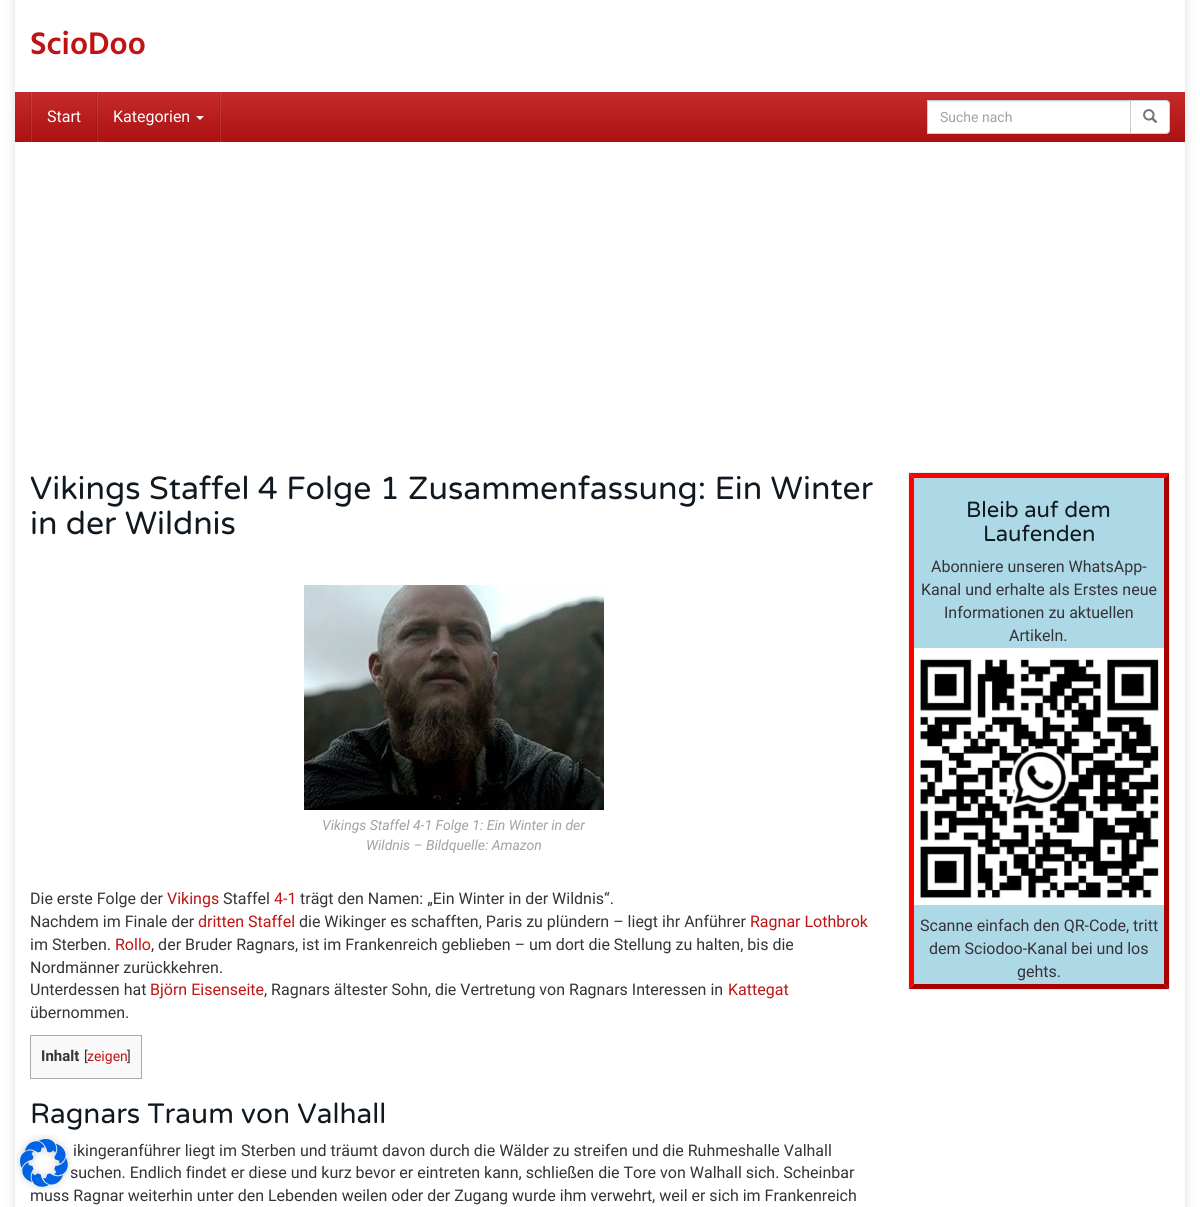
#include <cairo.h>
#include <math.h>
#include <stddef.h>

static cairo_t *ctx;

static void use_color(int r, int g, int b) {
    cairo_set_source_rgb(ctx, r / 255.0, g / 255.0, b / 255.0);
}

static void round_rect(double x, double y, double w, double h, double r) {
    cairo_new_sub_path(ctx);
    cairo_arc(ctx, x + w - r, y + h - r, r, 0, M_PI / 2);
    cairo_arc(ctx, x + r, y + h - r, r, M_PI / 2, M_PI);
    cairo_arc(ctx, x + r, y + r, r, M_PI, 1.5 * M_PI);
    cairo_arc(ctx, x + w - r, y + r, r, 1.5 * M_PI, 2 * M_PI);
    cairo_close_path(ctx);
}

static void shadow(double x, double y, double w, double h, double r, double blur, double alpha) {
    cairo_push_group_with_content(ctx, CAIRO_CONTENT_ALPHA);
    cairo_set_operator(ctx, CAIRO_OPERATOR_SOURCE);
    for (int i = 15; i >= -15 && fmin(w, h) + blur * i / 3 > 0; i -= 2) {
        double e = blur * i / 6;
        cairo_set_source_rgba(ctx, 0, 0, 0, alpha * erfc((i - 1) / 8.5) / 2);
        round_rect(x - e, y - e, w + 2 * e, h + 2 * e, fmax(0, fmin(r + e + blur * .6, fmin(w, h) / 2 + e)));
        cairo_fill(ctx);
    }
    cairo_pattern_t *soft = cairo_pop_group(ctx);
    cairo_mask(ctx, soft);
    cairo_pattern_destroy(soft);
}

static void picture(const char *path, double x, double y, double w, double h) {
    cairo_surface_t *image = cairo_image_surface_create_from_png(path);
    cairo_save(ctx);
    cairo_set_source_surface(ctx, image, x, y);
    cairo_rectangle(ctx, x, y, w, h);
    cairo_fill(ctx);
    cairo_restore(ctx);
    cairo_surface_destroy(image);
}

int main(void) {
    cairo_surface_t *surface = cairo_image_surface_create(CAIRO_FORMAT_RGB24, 1200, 1207);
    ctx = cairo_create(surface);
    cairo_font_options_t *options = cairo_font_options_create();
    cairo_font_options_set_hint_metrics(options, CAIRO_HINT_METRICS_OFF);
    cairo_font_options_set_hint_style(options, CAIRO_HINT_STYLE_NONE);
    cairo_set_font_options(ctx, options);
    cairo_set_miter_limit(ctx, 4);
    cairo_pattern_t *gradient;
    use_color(255, 255, 255);
    cairo_paint(ctx);
    cairo_save(ctx);
    cairo_set_fill_rule(ctx, CAIRO_FILL_RULE_EVEN_ODD);
    cairo_new_path(ctx);
    cairo_move_to(ctx, 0, 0);
    cairo_line_to(ctx, 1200, 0);
    cairo_line_to(ctx, 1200, 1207);
    cairo_line_to(ctx, 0, 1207);
    cairo_close_path(ctx);
    cairo_move_to(ctx, 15, 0);
    cairo_line_to(ctx, 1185, 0);
    cairo_line_to(ctx, 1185, 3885);
    cairo_line_to(ctx, 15, 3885);
    cairo_close_path(ctx);
    cairo_clip(ctx);
    use_color(221, 221, 221);
    shadow(15, 0, 1170, 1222, 0, 5, 1);
    cairo_restore(ctx);
    cairo_select_font_face(ctx, "Hind SemiBold", CAIRO_FONT_SLANT_NORMAL, CAIRO_FONT_WEIGHT_NORMAL);
    cairo_set_font_size(ctx, 32);
    use_color(192, 19, 19);
    cairo_move_to(ctx, 30, 54);
    cairo_show_text(ctx, "ScioDoo");
    gradient = cairo_pattern_create_linear(600, 92, 600, 142);
    cairo_pattern_add_color_stop_rgba(gradient, 0, 0.776, 0.165, 0.165, 1);
    cairo_pattern_add_color_stop_rgba(gradient, 1, 0.675, 0.067, 0.067, 1);
    cairo_set_source(ctx, gradient);
    cairo_pattern_destroy(gradient);
    cairo_rectangle(ctx, 15, 92, 1170, 50);
    cairo_fill(ctx);
    gradient = cairo_pattern_create_linear(600, 92, 600, 142);
    cairo_pattern_add_color_stop_rgba(gradient, 0, 0.8, 0.247, 0.247, 1);
    cairo_pattern_add_color_stop_rgba(gradient, 1, 0.706, 0.161, 0.161, 1);
    cairo_set_source(ctx, gradient);
    cairo_pattern_destroy(gradient);
    cairo_rectangle(ctx, 97, 92, 1, 50);
    cairo_fill(ctx);
    gradient = cairo_pattern_create_linear(600, 92, 600, 142);
    cairo_pattern_add_color_stop_rgba(gradient, 0, 0.698, 0.149, 0.149, 1);
    cairo_pattern_add_color_stop_rgba(gradient, 1, 0.608, 0.059, 0.059, 1);
    cairo_set_source(ctx, gradient);
    cairo_pattern_destroy(gradient);
    cairo_rectangle(ctx, 219, 92, 1, 50);
    cairo_fill(ctx);
    gradient = cairo_pattern_create_linear(600, 92, 600, 142);
    cairo_pattern_add_color_stop_rgba(gradient, 0, 0.8, 0.247, 0.247, 1);
    cairo_pattern_add_color_stop_rgba(gradient, 1, 0.706, 0.161, 0.161, 1);
    cairo_set_source(ctx, gradient);
    cairo_pattern_destroy(gradient);
    cairo_rectangle(ctx, 31, 92, 1, 50);
    cairo_fill(ctx);
    gradient = cairo_pattern_create_linear(600, 92, 600, 142);
    cairo_pattern_add_color_stop_rgba(gradient, 0, 0.698, 0.149, 0.149, 1);
    cairo_pattern_add_color_stop_rgba(gradient, 1, 0.608, 0.059, 0.059, 1);
    cairo_set_source(ctx, gradient);
    cairo_pattern_destroy(gradient);
    cairo_rectangle(ctx, 96, 92, 1, 50);
    cairo_fill(ctx);
    cairo_rectangle(ctx, 30, 92, 1, 50);
    cairo_fill(ctx);
    gradient = cairo_pattern_create_linear(600, 92, 600, 142);
    cairo_pattern_add_color_stop_rgba(gradient, 0, 0.8, 0.247, 0.247, 1);
    cairo_pattern_add_color_stop_rgba(gradient, 1, 0.706, 0.161, 0.161, 1);
    cairo_set_source(ctx, gradient);
    cairo_pattern_destroy(gradient);
    cairo_rectangle(ctx, 220, 92, 1, 50);
    cairo_fill(ctx);
    cairo_select_font_face(ctx, "Roboto", CAIRO_FONT_SLANT_NORMAL, CAIRO_FONT_WEIGHT_NORMAL);
    cairo_set_font_size(ctx, 16);
    use_color(255, 255, 255);
    cairo_move_to(ctx, 47, 122);
    cairo_show_text(ctx, "Start");
    cairo_move_to(ctx, 113, 122);
    cairo_show_text(ctx, "Kategorien");
    cairo_new_path(ctx);
    cairo_move_to(ctx, 196, 116);
    cairo_line_to(ctx, 204, 116);
    cairo_line_to(ctx, 200, 120);
    cairo_close_path(ctx);
    cairo_fill(ctx);
    cairo_rectangle(ctx, 928, 102, 202, 31);
    cairo_fill(ctx);
    use_color(236, 236, 236);
    cairo_rectangle(ctx, 928, 101, 202, 1);
    cairo_fill(ctx);
    cairo_rectangle(ctx, 927.5, 100.5, 203, 33);
    use_color(204, 204, 204);
    cairo_set_line_width(ctx, 1);
    cairo_stroke(ctx);
    cairo_set_font_size(ctx, 14);
    use_color(159, 162, 165);
    cairo_move_to(ctx, 940, 122);
    cairo_show_text(ctx, "Suche nach");
    use_color(255, 255, 255);
    cairo_new_path(ctx);
    cairo_move_to(ctx, 1130.5, 100.5);
    cairo_line_to(ctx, 1166, 100.5);
    cairo_curve_to(ctx, 1168, 100.5, 1169.5, 102, 1169.5, 104);
    cairo_line_to(ctx, 1169.5, 130);
    cairo_curve_to(ctx, 1169.5, 132, 1168, 133.5, 1166, 133.5);
    cairo_line_to(ctx, 1130.5, 133.5);
    cairo_close_path(ctx);
    cairo_fill_preserve(ctx);
    use_color(204, 204, 204);
    cairo_stroke(ctx);
    picture("img1.png", 1143, 109, 14, 14);
    cairo_select_font_face(ctx, "Varela Round", CAIRO_FONT_SLANT_NORMAL, CAIRO_FONT_WEIGHT_NORMAL);
    cairo_set_font_size(ctx, 32);
    use_color(16, 24, 32);
    cairo_move_to(ctx, 30, 499);
    cairo_show_text(ctx, "Vikings Staffel 4 Folge 1 Zusammenfassung: Ein Winter");
    cairo_move_to(ctx, 30, 534);
    cairo_show_text(ctx, "in der Wildnis");
    picture("img2.png", 304, 585, 300, 225);
    cairo_select_font_face(ctx, "Roboto", CAIRO_FONT_SLANT_ITALIC, CAIRO_FONT_WEIGHT_NORMAL);
    cairo_set_font_size(ctx, 14);
    use_color(159, 162, 165);
    cairo_move_to(ctx, 322, 830);
    cairo_show_text(ctx, "Vikings Staffel 4-1 Folge 1: Ein Winter in der");
    cairo_move_to(ctx, 366, 850);
    cairo_show_text(ctx, "Wildnis – Bildquelle: Amazon");
    cairo_select_font_face(ctx, "Roboto", CAIRO_FONT_SLANT_NORMAL, CAIRO_FONT_WEIGHT_NORMAL);
    cairo_set_font_size(ctx, 16);
    use_color(53, 51, 56);
    cairo_move_to(ctx, 30, 904);
    cairo_show_text(ctx, "Die erste Folge der");
    use_color(192, 19, 19);
    cairo_move_to(ctx, 167, 904);
    cairo_show_text(ctx, "Vikings");
    use_color(53, 51, 56);
    cairo_move_to(ctx, 223, 904);
    cairo_show_text(ctx, "Staffel");
    use_color(192, 19, 19);
    cairo_move_to(ctx, 274, 904);
    cairo_show_text(ctx, "4-1");
    use_color(53, 51, 56);
    cairo_move_to(ctx, 300, 904);
    cairo_show_text(ctx, "trägt den Namen: „Ein Winter in der Wildnis“.");
    cairo_move_to(ctx, 30, 927);
    cairo_show_text(ctx, "Nachdem im Finale der");
    use_color(192, 19, 19);
    cairo_move_to(ctx, 198, 927);
    cairo_show_text(ctx, "dritten Staffel");
    use_color(53, 51, 56);
    cairo_move_to(ctx, 299, 927);
    cairo_show_text(ctx, "die Wikinger es schafften, Paris zu plündern – liegt ihr Anführer");
    use_color(192, 19, 19);
    cairo_move_to(ctx, 750, 927);
    cairo_show_text(ctx, "Ragnar Lothbrok");
    use_color(53, 51, 56);
    cairo_move_to(ctx, 30, 950);
    cairo_show_text(ctx, "im Sterben.");
    use_color(192, 19, 19);
    cairo_move_to(ctx, 115, 950);
    cairo_show_text(ctx, "Rollo");
    use_color(53, 51, 56);
    cairo_move_to(ctx, 151, 950);
    cairo_show_text(ctx, ", der Bruder Ragnars, ist im Frankenreich geblieben – um dort die Stellung zu halten, bis die");
    cairo_move_to(ctx, 30, 973);
    cairo_show_text(ctx, "Nordmänner zurückkehren.");
    cairo_move_to(ctx, 30, 995);
    cairo_show_text(ctx, "Unterdessen hat");
    use_color(192, 19, 19);
    cairo_move_to(ctx, 150, 995);
    cairo_show_text(ctx, "Björn Eisenseite");
    use_color(53, 51, 56);
    cairo_move_to(ctx, 264, 995);
    cairo_show_text(ctx, ", Ragnars ältester Sohn, die Vertretung von Ragnars Interessen in");
    use_color(192, 19, 19);
    cairo_move_to(ctx, 728, 995);
    cairo_show_text(ctx, "Kattegat");
    use_color(53, 51, 56);
    cairo_move_to(ctx, 30, 1018);
    cairo_show_text(ctx, "übernommen.");
    use_color(249, 249, 249);
    cairo_rectangle(ctx, 30.5, 1035.5, 111, 43);
    cairo_fill_preserve(ctx);
    use_color(170, 170, 170);
    cairo_stroke(ctx);
    cairo_select_font_face(ctx, "Roboto", CAIRO_FONT_SLANT_NORMAL, CAIRO_FONT_WEIGHT_BOLD);
    cairo_set_font_size(ctx, 15);
    use_color(53, 51, 56);
    cairo_move_to(ctx, 41, 1061);
    cairo_show_text(ctx, "Inhalt");
    cairo_select_font_face(ctx, "Roboto", CAIRO_FONT_SLANT_NORMAL, CAIRO_FONT_WEIGHT_NORMAL);
    cairo_set_font_size(ctx, 14);
    cairo_move_to(ctx, 84, 1061);
    cairo_show_text(ctx, "[");
    use_color(192, 19, 19);
    cairo_move_to(ctx, 87, 1061);
    cairo_show_text(ctx, "zeigen");
    use_color(53, 51, 56);
    cairo_move_to(ctx, 127, 1061);
    cairo_show_text(ctx, "]");
    cairo_select_font_face(ctx, "Varela Round", CAIRO_FONT_SLANT_NORMAL, CAIRO_FONT_WEIGHT_NORMAL);
    cairo_set_font_size(ctx, 28);
    use_color(16, 24, 32);
    cairo_move_to(ctx, 30, 1123);
    cairo_show_text(ctx, "Ragnars Traum von Valhall");
    cairo_select_font_face(ctx, "Roboto", CAIRO_FONT_SLANT_NORMAL, CAIRO_FONT_WEIGHT_NORMAL);
    cairo_set_font_size(ctx, 16);
    use_color(53, 51, 56);
    cairo_move_to(ctx, 73, 1156);
    cairo_show_text(ctx, "ikingeranführer liegt im Sterben und träumt davon durch die Wälder zu streifen und die Ruhmeshalle Valhall");
    cairo_move_to(ctx, 70, 1178);
    cairo_show_text(ctx, "suchen. Endlich findet er diese und kurz bevor er eintreten kann, schließen die Tore von Walhall sich. Scheinbar");
    cairo_move_to(ctx, 30, 1201);
    cairo_show_text(ctx, "muss Ragnar weiterhin unter den Lebenden weilen oder der Zugang wurde ihm verwehrt, weil er sich im Frankenreich");
    cairo_rectangle(ctx, 908.5, 472.5, 261, 517);
    use_color(238, 238, 238);
    cairo_stroke(ctx);
    use_color(173, 216, 230);
    cairo_rectangle(ctx, 909, 473, 260, 516);
    cairo_fill(ctx);
    use_color(255, 0, 0);
    cairo_new_path(ctx);
    cairo_move_to(ctx, 909, 473);
    cairo_line_to(ctx, 1169, 473);
    cairo_line_to(ctx, 1164, 478);
    cairo_line_to(ctx, 914, 478);
    cairo_close_path(ctx);
    cairo_fill(ctx);
    use_color(170, 0, 0);
    cairo_new_path(ctx);
    cairo_move_to(ctx, 1169, 473);
    cairo_line_to(ctx, 1169, 989);
    cairo_line_to(ctx, 1164, 984);
    cairo_line_to(ctx, 1164, 478);
    cairo_close_path(ctx);
    cairo_fill(ctx);
    cairo_new_path(ctx);
    cairo_move_to(ctx, 1169, 989);
    cairo_line_to(ctx, 909, 989);
    cairo_line_to(ctx, 914, 984);
    cairo_line_to(ctx, 1164, 984);
    cairo_close_path(ctx);
    cairo_fill(ctx);
    use_color(255, 0, 0);
    cairo_new_path(ctx);
    cairo_move_to(ctx, 909, 989);
    cairo_line_to(ctx, 909, 473);
    cairo_line_to(ctx, 914, 478);
    cairo_line_to(ctx, 914, 984);
    cairo_close_path(ctx);
    cairo_fill(ctx);
    cairo_select_font_face(ctx, "Varela Round", CAIRO_FONT_SLANT_NORMAL, CAIRO_FONT_WEIGHT_NORMAL);
    cairo_set_font_size(ctx, 22);
    use_color(16, 24, 32);
    cairo_move_to(ctx, 966, 517);
    cairo_show_text(ctx, "Bleib auf dem");
    cairo_move_to(ctx, 983, 541);
    cairo_show_text(ctx, "Laufenden");
    cairo_select_font_face(ctx, "Roboto", CAIRO_FONT_SLANT_NORMAL, CAIRO_FONT_WEIGHT_NORMAL);
    cairo_set_font_size(ctx, 16);
    use_color(53, 51, 56);
    cairo_move_to(ctx, 931, 572);
    cairo_show_text(ctx, "Abonniere unseren WhatsApp-");
    cairo_move_to(ctx, 921, 595);
    cairo_show_text(ctx, "Kanal und erhalte als Erstes neue");
    cairo_move_to(ctx, 944, 618);
    cairo_show_text(ctx, "Informationen zu aktuellen");
    cairo_move_to(ctx, 1009, 641);
    cairo_show_text(ctx, "Artikeln.");
    picture("img3.png", 914, 648, 250, 257);
    cairo_move_to(ctx, 920, 931);
    cairo_show_text(ctx, "Scanne einfach den QR-Code, tritt");
    cairo_move_to(ctx, 929, 954);
    cairo_show_text(ctx, "dem Sciodoo-Kanal bei und los");
    cairo_move_to(ctx, 1017, 977);
    cairo_show_text(ctx, "gehts.");
    picture("img4.png", 15, 1134, 57, 57);
    cairo_surface_write_to_png(surface, "result.png");
    cairo_font_options_destroy(options);
    cairo_destroy(ctx);
    cairo_surface_destroy(surface);
    return 0;
}
